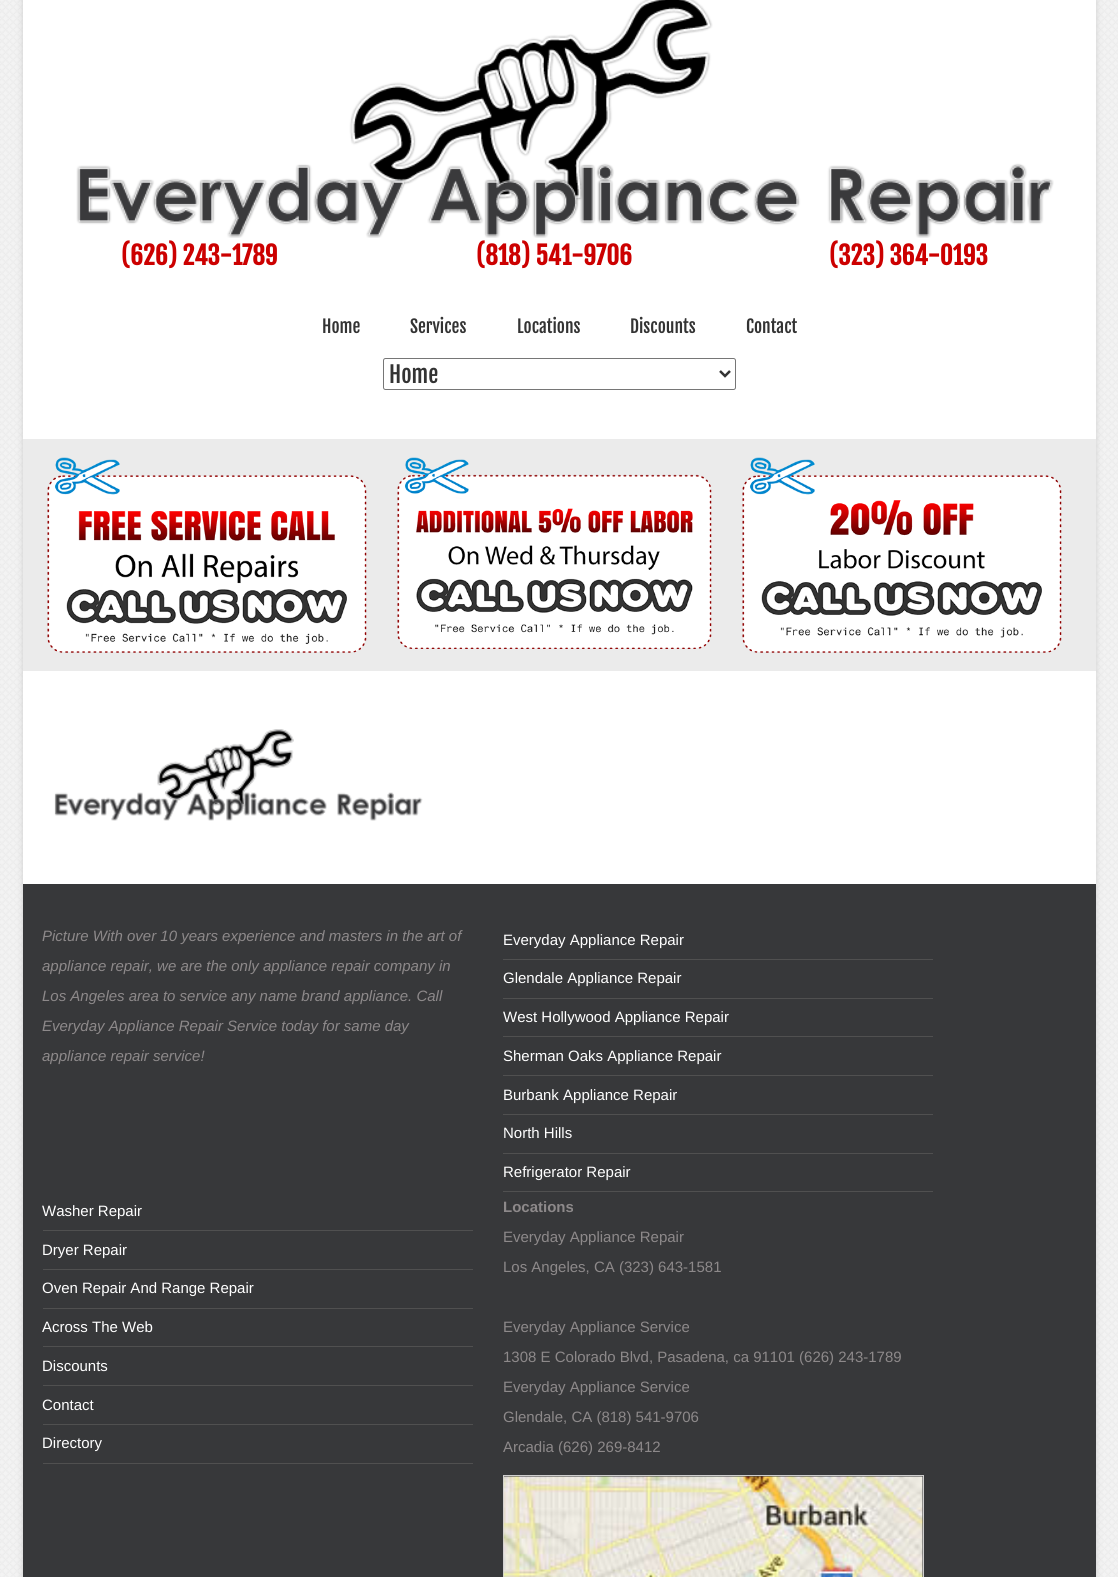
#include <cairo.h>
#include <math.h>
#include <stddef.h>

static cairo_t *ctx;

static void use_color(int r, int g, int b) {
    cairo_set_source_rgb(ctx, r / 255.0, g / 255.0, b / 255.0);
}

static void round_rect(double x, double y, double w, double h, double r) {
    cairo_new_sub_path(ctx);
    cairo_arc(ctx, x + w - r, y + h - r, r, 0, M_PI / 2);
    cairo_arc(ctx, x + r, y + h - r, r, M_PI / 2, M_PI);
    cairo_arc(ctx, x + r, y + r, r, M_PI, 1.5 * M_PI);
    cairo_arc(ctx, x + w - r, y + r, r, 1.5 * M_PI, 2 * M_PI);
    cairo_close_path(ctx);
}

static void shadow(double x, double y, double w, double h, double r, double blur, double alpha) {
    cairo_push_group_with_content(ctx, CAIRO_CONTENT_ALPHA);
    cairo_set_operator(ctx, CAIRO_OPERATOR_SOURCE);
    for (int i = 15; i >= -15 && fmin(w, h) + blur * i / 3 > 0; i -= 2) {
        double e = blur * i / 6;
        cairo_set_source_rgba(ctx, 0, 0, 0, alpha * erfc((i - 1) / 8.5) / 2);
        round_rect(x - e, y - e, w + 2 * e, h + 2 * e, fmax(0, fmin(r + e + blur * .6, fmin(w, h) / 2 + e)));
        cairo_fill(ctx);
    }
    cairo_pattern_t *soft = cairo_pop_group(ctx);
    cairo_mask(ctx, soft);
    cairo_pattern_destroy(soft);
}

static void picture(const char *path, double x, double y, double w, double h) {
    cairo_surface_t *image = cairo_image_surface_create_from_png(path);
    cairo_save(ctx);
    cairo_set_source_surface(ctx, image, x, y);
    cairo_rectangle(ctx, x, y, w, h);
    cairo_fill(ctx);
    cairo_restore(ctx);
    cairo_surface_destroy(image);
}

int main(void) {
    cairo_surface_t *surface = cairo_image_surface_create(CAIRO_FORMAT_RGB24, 1118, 1577);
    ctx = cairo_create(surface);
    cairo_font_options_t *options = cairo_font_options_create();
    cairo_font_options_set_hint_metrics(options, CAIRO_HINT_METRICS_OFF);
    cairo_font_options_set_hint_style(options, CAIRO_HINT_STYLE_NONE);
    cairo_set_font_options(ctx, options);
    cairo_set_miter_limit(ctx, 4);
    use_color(255, 255, 255);
    cairo_paint(ctx);
    picture("img1.png", 0, 0, 1118, 1577);
    use_color(204, 204, 204);
    shadow(23, -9, 1073, 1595, 0, 3, 1);
    use_color(255, 255, 255);
    cairo_rectangle(ctx, 23, 0, 1073, 884);
    cairo_fill(ctx);
    picture("img2.png", 76, 0, 978, 238);
    cairo_select_font_face(ctx, "Fjalla One", CAIRO_FONT_SLANT_NORMAL, CAIRO_FONT_WEIGHT_BOLD);
    cairo_set_font_size(ctx, 25);
    use_color(204, 0, 0);
    cairo_move_to(ctx, 121, 265);
    cairo_show_text(ctx, "(626) 243-1789");
    cairo_move_to(ctx, 476, 265);
    cairo_show_text(ctx, "(818) 541-9706");
    cairo_move_to(ctx, 829, 265);
    cairo_show_text(ctx, "(323) 364-0193");
    cairo_select_font_face(ctx, "Fjalla One", CAIRO_FONT_SLANT_NORMAL, CAIRO_FONT_WEIGHT_NORMAL);
    cairo_set_font_size(ctx, 17.5);
    use_color(51, 51, 51);
    cairo_move_to(ctx, 322, 333);
    cairo_show_text(ctx, "Home");
    cairo_move_to(ctx, 410, 333);
    cairo_show_text(ctx, "Services");
    cairo_move_to(ctx, 517, 333);
    cairo_show_text(ctx, "Locations");
    cairo_move_to(ctx, 630, 333);
    cairo_show_text(ctx, "Discounts");
    cairo_move_to(ctx, 746, 333);
    cairo_show_text(ctx, "Contact");
    round_rect(383.5, 358.5, 352, 31, 2);
    use_color(118, 118, 118);
    cairo_set_line_width(ctx, 1);
    cairo_stroke(ctx);
    cairo_new_path(ctx);
    cairo_move_to(ctx, 720, 371);
    cairo_line_to(ctx, 725, 376);
    cairo_line_to(ctx, 730, 371);
    use_color(51, 51, 51);
    cairo_set_line_width(ctx, 2.5);
    cairo_stroke(ctx);
    cairo_set_font_size(ctx, 22.5);
    cairo_move_to(ctx, 389, 383);
    cairo_show_text(ctx, "Home");
    use_color(235, 235, 235);
    cairo_rectangle(ctx, 23, 439, 1073, 232);
    cairo_fill(ctx);
    picture("img3.png", 47, 457, 320, 196);
    picture("img4.png", 397, 457, 315, 192);
    picture("img5.png", 742, 457, 320, 196);
    picture("img6.png", 54, 729, 369, 92);
    use_color(55, 56, 58);
    cairo_rectangle(ctx, 23, 884, 1073, 693);
    cairo_fill(ctx);
    cairo_select_font_face(ctx, "Liberation Sans", CAIRO_FONT_SLANT_ITALIC, CAIRO_FONT_WEIGHT_NORMAL);
    cairo_set_font_size(ctx, 15);
    use_color(141, 137, 138);
    cairo_move_to(ctx, 42, 941);
    cairo_show_text(ctx, "Picture With over 10 years experience and masters in the art of");
    cairo_move_to(ctx, 42, 971);
    cairo_show_text(ctx, "appliance repair, we are the only appliance repair company in");
    cairo_move_to(ctx, 42, 1001);
    cairo_show_text(ctx, "Los Angeles area to service any name brand appliance. Call");
    cairo_move_to(ctx, 42, 1031);
    cairo_show_text(ctx, "Everyday Appliance Repair Service today for same day");
    cairo_move_to(ctx, 42, 1061);
    cairo_show_text(ctx, "appliance repair service!");
    use_color(80, 80, 80);
    cairo_rectangle(ctx, 503, 959, 430, 1);
    cairo_fill(ctx);
    cairo_select_font_face(ctx, "Liberation Sans", CAIRO_FONT_SLANT_NORMAL, CAIRO_FONT_WEIGHT_NORMAL);
    use_color(255, 255, 255);
    cairo_move_to(ctx, 503, 945);
    cairo_show_text(ctx, "Everyday Appliance Repair");
    use_color(80, 80, 80);
    cairo_rectangle(ctx, 503, 998, 430, 1);
    cairo_fill(ctx);
    use_color(255, 255, 255);
    cairo_move_to(ctx, 503, 983);
    cairo_show_text(ctx, "Glendale Appliance Repair");
    use_color(80, 80, 80);
    cairo_rectangle(ctx, 503, 1036, 430, 1);
    cairo_fill(ctx);
    use_color(255, 255, 255);
    cairo_move_to(ctx, 503, 1022);
    cairo_show_text(ctx, "West Hollywood Appliance Repair");
    use_color(80, 80, 80);
    cairo_rectangle(ctx, 503, 1075, 430, 1);
    cairo_fill(ctx);
    use_color(255, 255, 255);
    cairo_move_to(ctx, 503, 1061);
    cairo_show_text(ctx, "Sherman Oaks Appliance Repair");
    use_color(80, 80, 80);
    cairo_rectangle(ctx, 503, 1114, 430, 1);
    cairo_fill(ctx);
    use_color(255, 255, 255);
    cairo_move_to(ctx, 503, 1100);
    cairo_show_text(ctx, "Burbank Appliance Repair");
    use_color(80, 80, 80);
    cairo_rectangle(ctx, 503, 1153, 430, 1);
    cairo_fill(ctx);
    use_color(255, 255, 255);
    cairo_move_to(ctx, 503, 1138);
    cairo_show_text(ctx, "North Hills");
    use_color(80, 80, 80);
    cairo_rectangle(ctx, 503, 1191, 430, 1);
    cairo_fill(ctx);
    use_color(255, 255, 255);
    cairo_move_to(ctx, 503, 1177);
    cairo_show_text(ctx, "Refrigerator Repair");
    use_color(80, 80, 80);
    cairo_rectangle(ctx, 43, 1230, 430, 1);
    cairo_fill(ctx);
    use_color(255, 255, 255);
    cairo_move_to(ctx, 42, 1216);
    cairo_show_text(ctx, "Washer Repair");
    use_color(80, 80, 80);
    cairo_rectangle(ctx, 43, 1269, 430, 1);
    cairo_fill(ctx);
    use_color(255, 255, 255);
    cairo_move_to(ctx, 42, 1255);
    cairo_show_text(ctx, "Dryer Repair");
    use_color(80, 80, 80);
    cairo_rectangle(ctx, 43, 1308, 430, 1);
    cairo_fill(ctx);
    use_color(255, 255, 255);
    cairo_move_to(ctx, 42, 1293);
    cairo_show_text(ctx, "Oven Repair And Range Repair");
    use_color(80, 80, 80);
    cairo_rectangle(ctx, 43, 1346, 430, 1);
    cairo_fill(ctx);
    use_color(255, 255, 255);
    cairo_move_to(ctx, 42, 1332);
    cairo_show_text(ctx, "Across The Web");
    use_color(80, 80, 80);
    cairo_rectangle(ctx, 43, 1385, 430, 1);
    cairo_fill(ctx);
    use_color(255, 255, 255);
    cairo_move_to(ctx, 42, 1371);
    cairo_show_text(ctx, "Discounts");
    use_color(80, 80, 80);
    cairo_rectangle(ctx, 43, 1424, 430, 1);
    cairo_fill(ctx);
    use_color(255, 255, 255);
    cairo_move_to(ctx, 42, 1410);
    cairo_show_text(ctx, "Contact");
    use_color(80, 80, 80);
    cairo_rectangle(ctx, 43, 1463, 430, 1);
    cairo_fill(ctx);
    use_color(255, 255, 255);
    cairo_move_to(ctx, 42, 1448);
    cairo_show_text(ctx, "Directory");
    cairo_select_font_face(ctx, "Liberation Sans", CAIRO_FONT_SLANT_NORMAL, CAIRO_FONT_WEIGHT_BOLD);
    use_color(141, 137, 138);
    cairo_move_to(ctx, 503, 1212);
    cairo_show_text(ctx, "Locations");
    cairo_select_font_face(ctx, "Liberation Sans", CAIRO_FONT_SLANT_NORMAL, CAIRO_FONT_WEIGHT_NORMAL);
    cairo_move_to(ctx, 503, 1242);
    cairo_show_text(ctx, "Everyday Appliance Repair");
    cairo_move_to(ctx, 503, 1272);
    cairo_show_text(ctx, "Los Angeles, CA (323) 643-1581");
    cairo_move_to(ctx, 503, 1332);
    cairo_show_text(ctx, "Everyday Appliance Service");
    cairo_move_to(ctx, 503, 1362);
    cairo_show_text(ctx, "1308 E Colorado Blvd, Pasadena, ca 91101 (626) 243-1789");
    cairo_move_to(ctx, 503, 1392);
    cairo_show_text(ctx, "Everyday Appliance Service");
    cairo_move_to(ctx, 503, 1422);
    cairo_show_text(ctx, "Glendale, CA (818) 541-9706");
    cairo_move_to(ctx, 503, 1452);
    cairo_show_text(ctx, "Arcadia (626) 269-8412");
    cairo_rectangle(ctx, 503.5, 1475.5, 420, 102);
    use_color(207, 206, 206);
    cairo_set_line_width(ctx, 1);
    cairo_stroke(ctx);
    picture("img7.png", 503, 1476, 420, 101);
    cairo_surface_write_to_png(surface, "result.png");
    cairo_font_options_destroy(options);
    cairo_destroy(ctx);
    cairo_surface_destroy(surface);
    return 0;
}
